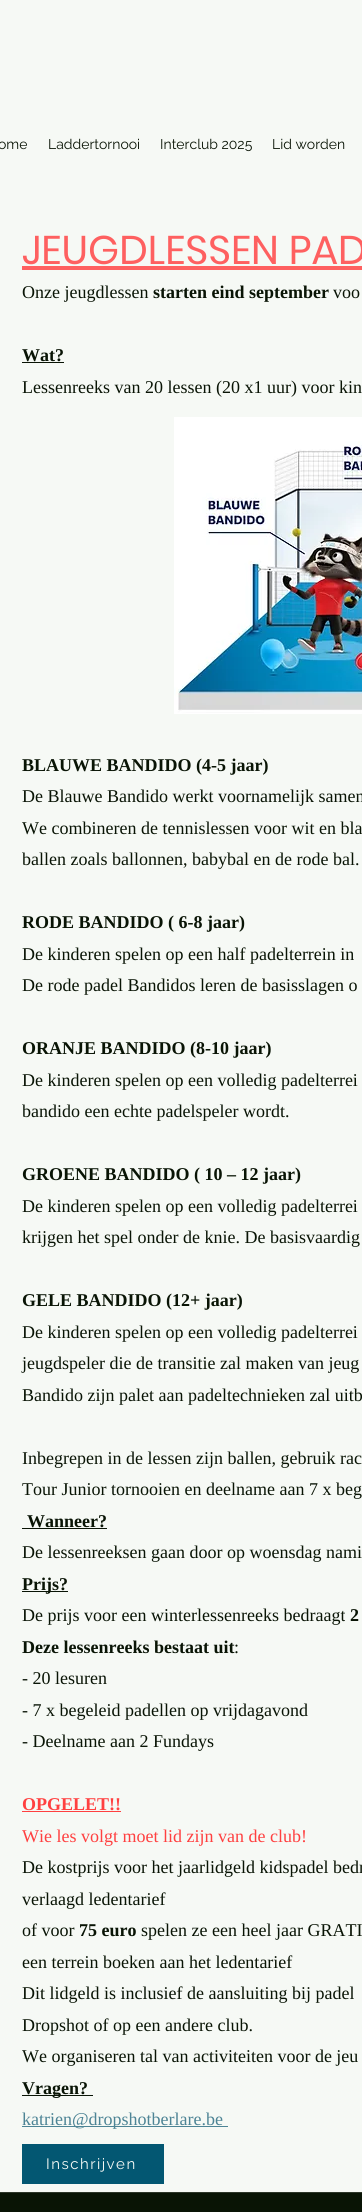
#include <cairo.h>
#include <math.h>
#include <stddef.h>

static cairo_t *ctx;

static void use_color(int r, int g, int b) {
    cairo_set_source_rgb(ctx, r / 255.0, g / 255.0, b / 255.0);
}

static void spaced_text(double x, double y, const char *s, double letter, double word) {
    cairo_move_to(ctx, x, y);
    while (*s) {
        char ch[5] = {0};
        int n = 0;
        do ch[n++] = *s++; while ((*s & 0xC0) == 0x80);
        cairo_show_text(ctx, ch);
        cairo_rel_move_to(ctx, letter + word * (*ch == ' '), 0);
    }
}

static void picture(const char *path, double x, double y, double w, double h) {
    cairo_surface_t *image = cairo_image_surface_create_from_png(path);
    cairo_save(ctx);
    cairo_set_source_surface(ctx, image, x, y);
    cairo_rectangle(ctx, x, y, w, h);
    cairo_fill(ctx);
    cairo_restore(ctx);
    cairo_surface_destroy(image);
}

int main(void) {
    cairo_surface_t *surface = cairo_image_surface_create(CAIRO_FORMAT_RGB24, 362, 2212);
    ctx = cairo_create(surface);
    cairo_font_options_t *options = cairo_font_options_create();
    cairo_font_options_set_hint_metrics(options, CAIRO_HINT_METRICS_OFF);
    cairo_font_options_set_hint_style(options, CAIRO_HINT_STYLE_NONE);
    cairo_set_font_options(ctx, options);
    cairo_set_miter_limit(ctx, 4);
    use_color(246, 249, 245);
    cairo_paint(ctx);
    cairo_select_font_face(ctx, "Raleway", CAIRO_FONT_SLANT_NORMAL, CAIRO_FONT_WEIGHT_NORMAL);
    cairo_set_font_size(ctx, 14);
    use_color(9, 20, 5);
    cairo_move_to(ctx, -2, 149);
    cairo_show_text(ctx, "ome");
    cairo_move_to(ctx, 48, 149);
    cairo_show_text(ctx, "Laddertornooi");
    cairo_move_to(ctx, 160, 149);
    cairo_show_text(ctx, "Interclub 2025");
    cairo_move_to(ctx, 272, 149);
    cairo_show_text(ctx, "Lid worden");
    cairo_select_font_face(ctx, "Poppins", CAIRO_FONT_SLANT_NORMAL, CAIRO_FONT_WEIGHT_NORMAL);
    cairo_set_font_size(ctx, 40);
    use_color(254, 96, 96);
    cairo_move_to(ctx, 22, 264);
    cairo_show_text(ctx, "JEUGDLESSEN PAD");
    cairo_rectangle(ctx, 22, 266, 340, 4);
    cairo_fill(ctx);
    cairo_select_font_face(ctx, "Liberation Serif", CAIRO_FONT_SLANT_NORMAL, CAIRO_FONT_WEIGHT_NORMAL);
    cairo_set_font_size(ctx, 18);
    use_color(9, 20, 5);
    cairo_move_to(ctx, 22, 298);
    cairo_show_text(ctx, "Onze jeugdlessen");
    cairo_select_font_face(ctx, "Liberation Serif", CAIRO_FONT_SLANT_NORMAL, CAIRO_FONT_WEIGHT_BOLD);
    cairo_move_to(ctx, 153, 298);
    cairo_show_text(ctx, "starten eind september");
    cairo_select_font_face(ctx, "Liberation Serif", CAIRO_FONT_SLANT_NORMAL, CAIRO_FONT_WEIGHT_NORMAL);
    cairo_move_to(ctx, 333, 298);
    cairo_show_text(ctx, "voo");
    cairo_select_font_face(ctx, "Liberation Serif", CAIRO_FONT_SLANT_NORMAL, CAIRO_FONT_WEIGHT_BOLD);
    cairo_move_to(ctx, 22, 361);
    cairo_show_text(ctx, "Wat?");
    cairo_rectangle(ctx, 22, 362, 42, 1);
    cairo_fill(ctx);
    cairo_select_font_face(ctx, "Liberation Serif", CAIRO_FONT_SLANT_NORMAL, CAIRO_FONT_WEIGHT_NORMAL);
    cairo_move_to(ctx, 22, 393);
    cairo_show_text(ctx, "Lessenreeks van 20 lessen (20 x1 uur) voor kin");
    cairo_select_font_face(ctx, "Liberation Serif", CAIRO_FONT_SLANT_NORMAL, CAIRO_FONT_WEIGHT_BOLD);
    cairo_move_to(ctx, 22, 771);
    cairo_show_text(ctx, "BLAUWE BANDIDO (4-5 jaar)");
    cairo_select_font_face(ctx, "Liberation Serif", CAIRO_FONT_SLANT_NORMAL, CAIRO_FONT_WEIGHT_NORMAL);
    cairo_move_to(ctx, 22, 802);
    cairo_show_text(ctx, "De Blauwe Bandido werkt voornamelijk samen");
    cairo_move_to(ctx, 22, 834);
    cairo_show_text(ctx, "We combineren de tennislessen voor wit en bla");
    cairo_move_to(ctx, 22, 865);
    cairo_show_text(ctx, "ballen zoals ballonnen, babybal en de rode bal.");
    cairo_select_font_face(ctx, "Liberation Serif", CAIRO_FONT_SLANT_NORMAL, CAIRO_FONT_WEIGHT_BOLD);
    cairo_move_to(ctx, 22, 928);
    cairo_show_text(ctx, "RODE BANDIDO ( 6-8 jaar)");
    cairo_select_font_face(ctx, "Liberation Serif", CAIRO_FONT_SLANT_NORMAL, CAIRO_FONT_WEIGHT_NORMAL);
    cairo_move_to(ctx, 22, 960);
    cairo_show_text(ctx, "De kinderen spelen op een half padelterrein in");
    cairo_move_to(ctx, 22, 991);
    cairo_show_text(ctx, "De rode padel Bandidos leren de basisslagen o");
    cairo_select_font_face(ctx, "Liberation Serif", CAIRO_FONT_SLANT_NORMAL, CAIRO_FONT_WEIGHT_BOLD);
    cairo_move_to(ctx, 22, 1054);
    cairo_show_text(ctx, "ORANJE BANDIDO (8-10 jaar)");
    cairo_select_font_face(ctx, "Liberation Serif", CAIRO_FONT_SLANT_NORMAL, CAIRO_FONT_WEIGHT_NORMAL);
    cairo_move_to(ctx, 22, 1086);
    cairo_show_text(ctx, "De kinderen spelen op een volledig padelterrei");
    cairo_move_to(ctx, 22, 1117);
    cairo_show_text(ctx, "bandido een echte padelspeler wordt.");
    cairo_select_font_face(ctx, "Liberation Serif", CAIRO_FONT_SLANT_NORMAL, CAIRO_FONT_WEIGHT_BOLD);
    cairo_move_to(ctx, 22, 1180);
    cairo_show_text(ctx, "GROENE BANDIDO ( 10 – 12 jaar)");
    cairo_select_font_face(ctx, "Liberation Serif", CAIRO_FONT_SLANT_NORMAL, CAIRO_FONT_WEIGHT_NORMAL);
    cairo_move_to(ctx, 22, 1212);
    cairo_show_text(ctx, "De kinderen spelen op een volledig padelterrei");
    cairo_move_to(ctx, 22, 1243);
    cairo_show_text(ctx, "krijgen het spel onder de knie. De basisvaardig");
    cairo_select_font_face(ctx, "Liberation Serif", CAIRO_FONT_SLANT_NORMAL, CAIRO_FONT_WEIGHT_BOLD);
    cairo_move_to(ctx, 22, 1306);
    cairo_show_text(ctx, "GELE BANDIDO (12+ jaar)");
    cairo_select_font_face(ctx, "Liberation Serif", CAIRO_FONT_SLANT_NORMAL, CAIRO_FONT_WEIGHT_NORMAL);
    cairo_move_to(ctx, 22, 1338);
    cairo_show_text(ctx, "De kinderen spelen op een volledig padelterrei");
    cairo_move_to(ctx, 22, 1369);
    cairo_show_text(ctx, "jeugdspeler die de transitie zal maken van jeug");
    cairo_move_to(ctx, 22, 1401);
    cairo_show_text(ctx, "Bandido zijn palet aan padeltechnieken zal uitb");
    cairo_move_to(ctx, 22, 1464);
    cairo_show_text(ctx, "Inbegrepen in de lessen zijn ballen, gebruik rac");
    cairo_move_to(ctx, 22, 1495);
    cairo_show_text(ctx, "Tour Junior tornooien en deelname aan 7 x beg");
    cairo_select_font_face(ctx, "Liberation Serif", CAIRO_FONT_SLANT_NORMAL, CAIRO_FONT_WEIGHT_BOLD);
    cairo_move_to(ctx, 27, 1527);
    cairo_show_text(ctx, "Wanneer?");
    cairo_rectangle(ctx, 22, 1528, 85, 1);
    cairo_fill(ctx);
    cairo_select_font_face(ctx, "Liberation Serif", CAIRO_FONT_SLANT_NORMAL, CAIRO_FONT_WEIGHT_NORMAL);
    cairo_move_to(ctx, 22, 1558);
    cairo_show_text(ctx, "De lessenreeksen gaan door op woensdag nami");
    cairo_rectangle(ctx, 22, 1591, 46, 1);
    cairo_fill(ctx);
    cairo_select_font_face(ctx, "Liberation Serif", CAIRO_FONT_SLANT_NORMAL, CAIRO_FONT_WEIGHT_BOLD);
    cairo_move_to(ctx, 22, 1590);
    cairo_show_text(ctx, "Prijs?");
    cairo_select_font_face(ctx, "Liberation Serif", CAIRO_FONT_SLANT_NORMAL, CAIRO_FONT_WEIGHT_NORMAL);
    cairo_move_to(ctx, 22, 1621);
    cairo_show_text(ctx, "De prijs voor een winterlessenreeks bedraagt");
    cairo_select_font_face(ctx, "Liberation Serif", CAIRO_FONT_SLANT_NORMAL, CAIRO_FONT_WEIGHT_BOLD);
    cairo_move_to(ctx, 350, 1621);
    cairo_show_text(ctx, "2");
    cairo_move_to(ctx, 22, 1653);
    cairo_show_text(ctx, "Deze lessenreeks bestaat uit");
    cairo_select_font_face(ctx, "Liberation Serif", CAIRO_FONT_SLANT_NORMAL, CAIRO_FONT_WEIGHT_NORMAL);
    cairo_move_to(ctx, 234, 1653);
    cairo_show_text(ctx, ":");
    cairo_move_to(ctx, 22, 1684);
    cairo_show_text(ctx, "- 20 lesuren");
    cairo_move_to(ctx, 22, 1716);
    cairo_show_text(ctx, "- 7 x begeleid padellen op vrijdagavond");
    cairo_move_to(ctx, 22, 1747);
    cairo_show_text(ctx, "- Deelname aan 2 Fundays");
    cairo_select_font_face(ctx, "Liberation Serif", CAIRO_FONT_SLANT_NORMAL, CAIRO_FONT_WEIGHT_BOLD);
    use_color(255, 64, 64);
    cairo_move_to(ctx, 22, 1810);
    cairo_show_text(ctx, "OPGELET!!");
    cairo_rectangle(ctx, 22, 1811, 99, 1);
    cairo_fill(ctx);
    cairo_select_font_face(ctx, "Liberation Serif", CAIRO_FONT_SLANT_NORMAL, CAIRO_FONT_WEIGHT_NORMAL);
    cairo_move_to(ctx, 22, 1842);
    cairo_show_text(ctx, "Wie les volgt moet lid zijn van de club!");
    use_color(9, 20, 5);
    cairo_move_to(ctx, 22, 1873);
    cairo_show_text(ctx, "De kostprijs voor het jaarlidgeld kidspadel bedr");
    cairo_move_to(ctx, 22, 1905);
    cairo_show_text(ctx, "verlaagd ledentarief");
    cairo_move_to(ctx, 22, 1936);
    cairo_show_text(ctx, "of voor");
    cairo_select_font_face(ctx, "Liberation Serif", CAIRO_FONT_SLANT_NORMAL, CAIRO_FONT_WEIGHT_BOLD);
    cairo_move_to(ctx, 79, 1936);
    cairo_show_text(ctx, "75 euro");
    cairo_select_font_face(ctx, "Liberation Serif", CAIRO_FONT_SLANT_NORMAL, CAIRO_FONT_WEIGHT_NORMAL);
    cairo_move_to(ctx, 141, 1936);
    cairo_show_text(ctx, "spelen ze een heel jaar GRATI");
    cairo_move_to(ctx, 22, 1968);
    cairo_show_text(ctx, "een terrein boeken aan het ledentarief");
    cairo_move_to(ctx, 22, 1999);
    cairo_show_text(ctx, "Dit lidgeld is inclusief de aansluiting bij padel");
    cairo_move_to(ctx, 22, 2031);
    cairo_show_text(ctx, "Dropshot of op een andere club.");
    cairo_move_to(ctx, 22, 2062);
    cairo_show_text(ctx, "We organiseren tal van activiteiten voor de jeu");
    cairo_rectangle(ctx, 22, 2095, 71, 1);
    cairo_fill(ctx);
    cairo_select_font_face(ctx, "Liberation Serif", CAIRO_FONT_SLANT_NORMAL, CAIRO_FONT_WEIGHT_BOLD);
    cairo_move_to(ctx, 22, 2094);
    cairo_show_text(ctx, "Vragen?");
    use_color(77, 132, 149);
    cairo_rectangle(ctx, 22, 2126, 206, 1);
    cairo_fill(ctx);
    cairo_select_font_face(ctx, "Liberation Serif", CAIRO_FONT_SLANT_NORMAL, CAIRO_FONT_WEIGHT_NORMAL);
    cairo_move_to(ctx, 22, 2125);
    cairo_show_text(ctx, "katrien@dropshotberlare.be");
    picture("img1.png", 174, 417, 188, 297);
    use_color(3, 87, 114);
    cairo_rectangle(ctx, 22, 2144, 142, 40);
    cairo_fill(ctx);
    cairo_select_font_face(ctx, "Raleway", CAIRO_FONT_SLANT_NORMAL, CAIRO_FONT_WEIGHT_NORMAL);
    cairo_set_font_size(ctx, 15);
    use_color(246, 249, 245);
    spaced_text(46, 2169, "Inschrijven", 1.5, 0);
    use_color(9, 20, 5);
    cairo_rectangle(ctx, 0, 2193, 362, 19);
    cairo_fill(ctx);
    use_color(45, 54, 41);
    cairo_rectangle(ctx, 0, 2192, 362, 1);
    cairo_fill(ctx);
    cairo_surface_write_to_png(surface, "result.png");
    cairo_font_options_destroy(options);
    cairo_destroy(ctx);
    cairo_surface_destroy(surface);
    return 0;
}
